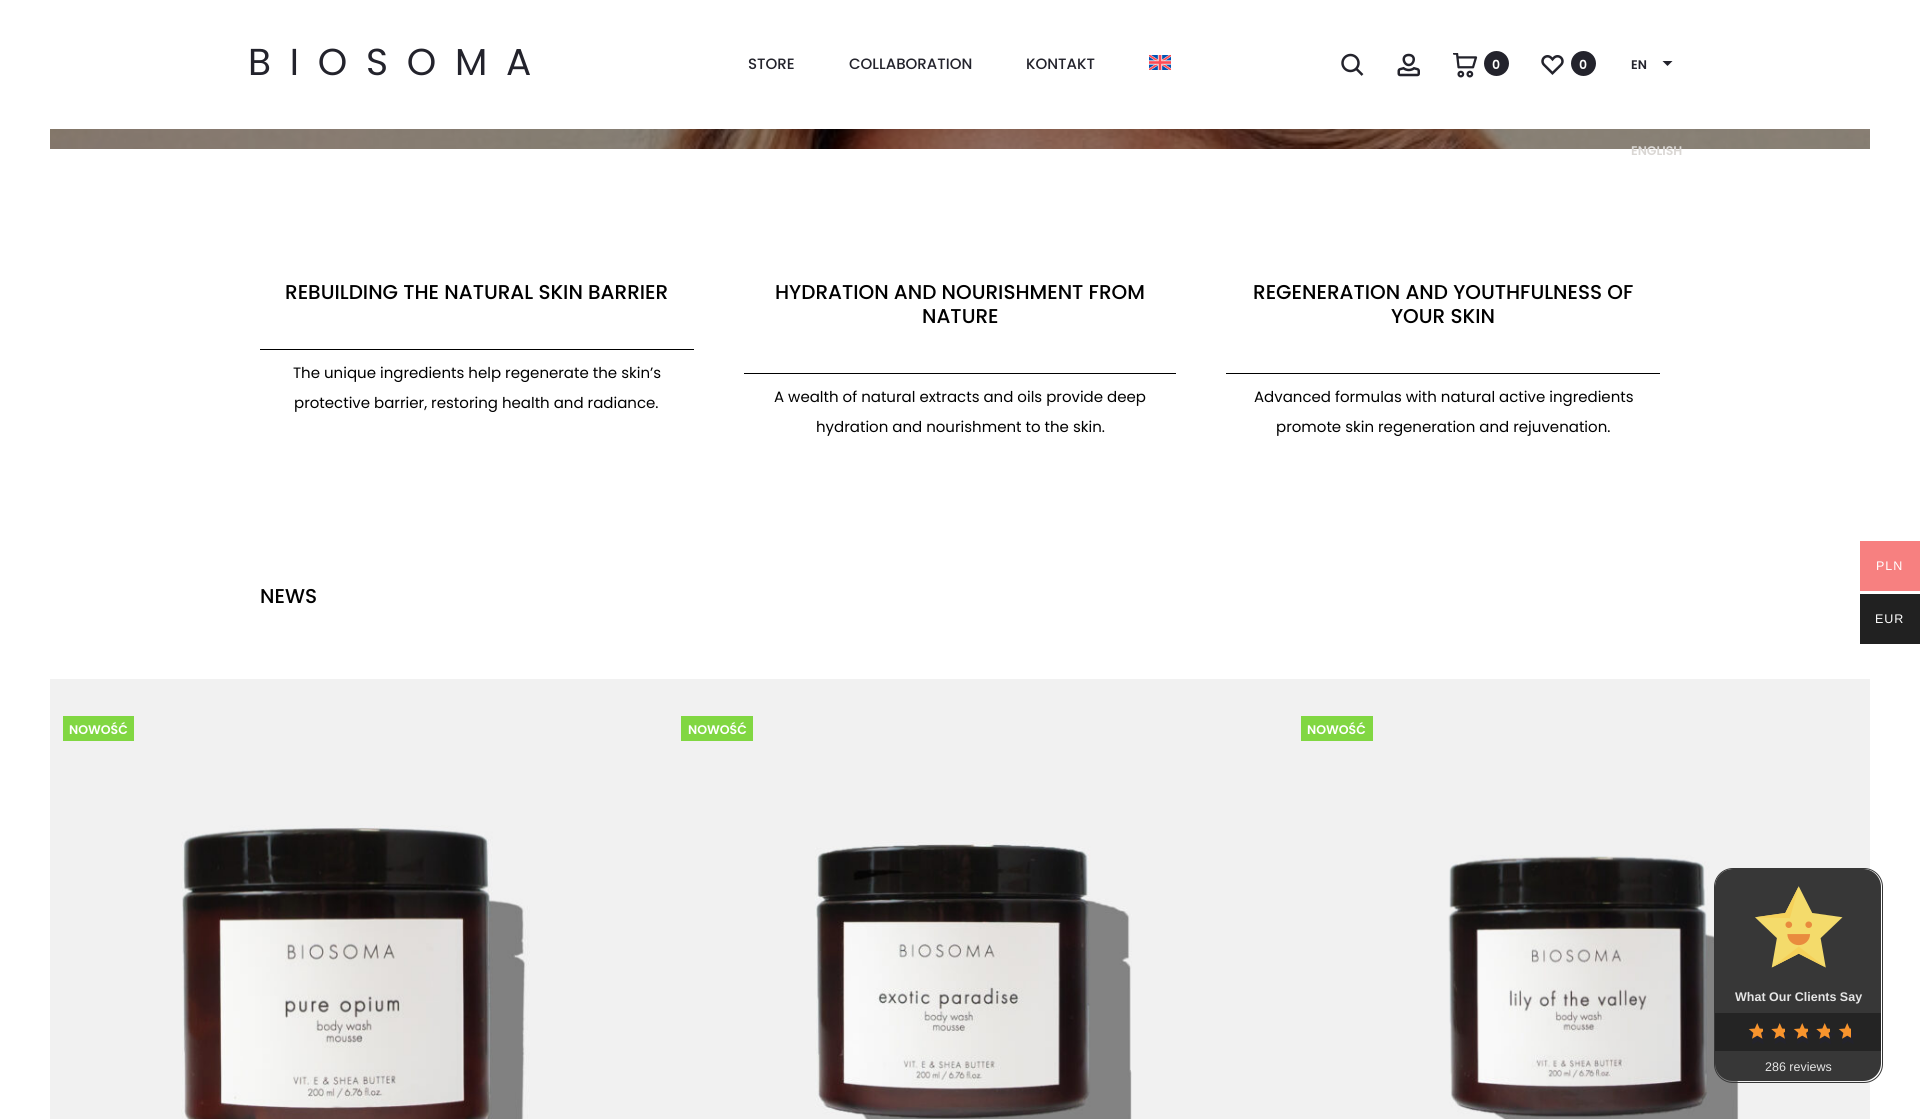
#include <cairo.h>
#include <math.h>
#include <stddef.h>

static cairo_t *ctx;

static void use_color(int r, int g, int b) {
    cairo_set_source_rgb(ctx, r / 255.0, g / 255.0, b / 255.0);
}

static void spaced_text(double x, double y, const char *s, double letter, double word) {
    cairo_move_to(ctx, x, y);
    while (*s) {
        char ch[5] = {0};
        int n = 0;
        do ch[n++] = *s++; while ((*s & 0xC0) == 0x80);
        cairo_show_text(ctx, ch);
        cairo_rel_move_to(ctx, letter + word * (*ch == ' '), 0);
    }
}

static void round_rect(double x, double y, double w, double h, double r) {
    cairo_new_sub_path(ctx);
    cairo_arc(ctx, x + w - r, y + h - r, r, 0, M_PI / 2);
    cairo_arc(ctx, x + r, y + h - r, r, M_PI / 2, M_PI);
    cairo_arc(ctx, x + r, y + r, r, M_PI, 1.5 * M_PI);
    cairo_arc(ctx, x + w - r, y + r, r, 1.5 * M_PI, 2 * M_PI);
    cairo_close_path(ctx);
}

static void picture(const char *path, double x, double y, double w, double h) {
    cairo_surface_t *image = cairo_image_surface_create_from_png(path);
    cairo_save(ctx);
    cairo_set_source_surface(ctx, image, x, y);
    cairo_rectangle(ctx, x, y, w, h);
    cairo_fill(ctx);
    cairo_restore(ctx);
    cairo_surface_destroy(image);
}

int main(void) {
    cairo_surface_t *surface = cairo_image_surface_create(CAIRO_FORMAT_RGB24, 1920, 1119);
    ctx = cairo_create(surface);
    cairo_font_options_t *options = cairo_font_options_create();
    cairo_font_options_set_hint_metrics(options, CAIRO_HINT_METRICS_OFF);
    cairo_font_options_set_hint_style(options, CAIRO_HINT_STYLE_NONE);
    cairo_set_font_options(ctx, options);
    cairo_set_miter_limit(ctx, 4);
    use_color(255, 255, 255);
    cairo_paint(ctx);
    cairo_select_font_face(ctx, "Poppins", CAIRO_FONT_SLANT_NORMAL, CAIRO_FONT_WEIGHT_NORMAL);
    cairo_set_font_size(ctx, 37.5);
    use_color(35, 35, 44);
    spaced_text(248, 75, "BIOSOMA", 18.75, 0);
    cairo_select_font_face(ctx, "Poppins Medium", CAIRO_FONT_SLANT_NORMAL, CAIRO_FONT_WEIGHT_NORMAL);
    cairo_set_font_size(ctx, 15);
    cairo_move_to(ctx, 748, 69);
    cairo_show_text(ctx, "STORE");
    cairo_move_to(ctx, 849, 69);
    cairo_show_text(ctx, "COLLABORATION");
    cairo_move_to(ctx, 1026, 69);
    cairo_show_text(ctx, "KONTAKT");
    picture("img1.png", 1149, 55, 22, 15);
    cairo_arc(ctx, 1350.5, 63, 8, 0, 2 * M_PI);
    cairo_set_line_width(ctx, 2.5);
    cairo_stroke(ctx);
    cairo_new_path(ctx);
    cairo_move_to(ctx, 1356, 68.5);
    cairo_line_to(ctx, 1362.5, 75);
    cairo_stroke(ctx);
    picture("img2.png", 1397, 53, 23, 24);
    picture("img3.png", 1453, 53, 25, 25);
    cairo_arc(ctx, 1496.5, 63.5, 12.5, 0, 2 * M_PI);
    cairo_fill(ctx);
    cairo_select_font_face(ctx, "Poppins SemiBold", CAIRO_FONT_SLANT_NORMAL, CAIRO_FONT_WEIGHT_NORMAL);
    cairo_set_font_size(ctx, 12.5);
    use_color(255, 255, 255);
    cairo_move_to(ctx, 1492, 69);
    cairo_show_text(ctx, "0");
    picture("img4.png", 1541, 55, 23, 20);
    use_color(35, 35, 44);
    cairo_arc(ctx, 1583.5, 63.5, 12.5, 0, 2 * M_PI);
    cairo_fill(ctx);
    use_color(255, 255, 255);
    cairo_move_to(ctx, 1579, 69);
    cairo_show_text(ctx, "0");
    use_color(35, 35, 44);
    cairo_move_to(ctx, 1631, 69);
    cairo_show_text(ctx, "EN");
    cairo_new_path(ctx);
    cairo_move_to(ctx, 1662.5, 61);
    cairo_line_to(ctx, 1672.5, 61);
    cairo_line_to(ctx, 1667.5, 66);
    cairo_close_path(ctx);
    cairo_fill(ctx);
    picture("img5.png", 50, 129, 1820, 20);
    use_color(218, 215, 212);
    cairo_move_to(ctx, 1631, 155);
    cairo_show_text(ctx, "ENGLISH");
    cairo_select_font_face(ctx, "Poppins Medium", CAIRO_FONT_SLANT_NORMAL, CAIRO_FONT_WEIGHT_NORMAL);
    cairo_set_font_size(ctx, 20);
    use_color(0, 0, 0);
    cairo_move_to(ctx, 285, 299);
    cairo_show_text(ctx, "REBUILDING THE NATURAL SKIN BARRIER");
    cairo_rectangle(ctx, 260, 349, 434, 1);
    cairo_fill(ctx);
    cairo_select_font_face(ctx, "Poppins", CAIRO_FONT_SLANT_NORMAL, CAIRO_FONT_WEIGHT_NORMAL);
    cairo_set_font_size(ctx, 15);
    cairo_move_to(ctx, 293, 378);
    cairo_show_text(ctx, "The unique ingredients help regenerate the skin’s");
    cairo_move_to(ctx, 294, 408);
    cairo_show_text(ctx, "protective barrier, restoring health and radiance.");
    cairo_select_font_face(ctx, "Poppins Medium", CAIRO_FONT_SLANT_NORMAL, CAIRO_FONT_WEIGHT_NORMAL);
    cairo_set_font_size(ctx, 20);
    cairo_move_to(ctx, 775, 299);
    cairo_show_text(ctx, "HYDRATION AND NOURISHMENT FROM");
    cairo_move_to(ctx, 922, 323);
    cairo_show_text(ctx, "NATURE");
    cairo_rectangle(ctx, 744, 373, 432, 1);
    cairo_fill(ctx);
    cairo_select_font_face(ctx, "Poppins", CAIRO_FONT_SLANT_NORMAL, CAIRO_FONT_WEIGHT_NORMAL);
    cairo_set_font_size(ctx, 15);
    cairo_move_to(ctx, 774, 402);
    cairo_show_text(ctx, "A wealth of natural extracts and oils provide deep");
    cairo_move_to(ctx, 816, 432);
    cairo_show_text(ctx, "hydration and nourishment to the skin.");
    cairo_select_font_face(ctx, "Poppins Medium", CAIRO_FONT_SLANT_NORMAL, CAIRO_FONT_WEIGHT_NORMAL);
    cairo_set_font_size(ctx, 20);
    cairo_move_to(ctx, 1253, 299);
    cairo_show_text(ctx, "REGENERATION AND YOUTHFULNESS OF");
    cairo_move_to(ctx, 1391, 323);
    cairo_show_text(ctx, "YOUR SKIN");
    cairo_rectangle(ctx, 1226, 373, 434, 1);
    cairo_fill(ctx);
    cairo_select_font_face(ctx, "Poppins", CAIRO_FONT_SLANT_NORMAL, CAIRO_FONT_WEIGHT_NORMAL);
    cairo_set_font_size(ctx, 15);
    cairo_move_to(ctx, 1254, 402);
    cairo_show_text(ctx, "Advanced formulas with natural active ingredients");
    cairo_move_to(ctx, 1276, 432);
    cairo_show_text(ctx, "promote skin regeneration and rejuvenation.");
    cairo_select_font_face(ctx, "Poppins Medium", CAIRO_FONT_SLANT_NORMAL, CAIRO_FONT_WEIGHT_NORMAL);
    cairo_set_font_size(ctx, 20);
    cairo_move_to(ctx, 260, 603);
    cairo_show_text(ctx, "NEWS");
    use_color(241, 241, 241);
    cairo_rectangle(ctx, 50, 679, 1820, 440);
    cairo_fill(ctx);
    use_color(129, 215, 66);
    cairo_rectangle(ctx, 63, 716, 71, 25);
    cairo_fill(ctx);
    cairo_select_font_face(ctx, "Poppins SemiBold", CAIRO_FONT_SLANT_NORMAL, CAIRO_FONT_WEIGHT_NORMAL);
    cairo_set_font_size(ctx, 12.5);
    use_color(255, 255, 255);
    cairo_move_to(ctx, 69, 734);
    cairo_show_text(ctx, "NOWOŚĆ");
    picture("img6.png", 181, 825, 349, 294);
    use_color(129, 215, 66);
    cairo_rectangle(ctx, 681, 716, 72, 25);
    cairo_fill(ctx);
    use_color(255, 255, 255);
    cairo_move_to(ctx, 688, 734);
    cairo_show_text(ctx, "NOWOŚĆ");
    picture("img7.png", 815, 840, 317, 279);
    use_color(129, 215, 66);
    cairo_rectangle(ctx, 1301, 716, 72, 25);
    cairo_fill(ctx);
    use_color(255, 255, 255);
    cairo_move_to(ctx, 1307, 734);
    cairo_show_text(ctx, "NOWOŚĆ");
    picture("img8.png", 1448, 855, 291, 264);
    use_color(247, 128, 128);
    cairo_rectangle(ctx, 1860, 541, 60, 50);
    cairo_fill(ctx);
    cairo_select_font_face(ctx, "Liberation Sans", CAIRO_FONT_SLANT_NORMAL, CAIRO_FONT_WEIGHT_NORMAL);
    use_color(255, 255, 255);
    spaced_text(1876, 570, "PLN", 1, 0);
    use_color(33, 33, 33);
    cairo_rectangle(ctx, 1860, 594, 60, 50);
    cairo_fill(ctx);
    use_color(255, 255, 255);
    spaced_text(1875, 623, "EUR", 1, 0);
    round_rect(1714.5, 868.5, 168, 214, 18.5);
    use_color(55, 55, 55);
    cairo_set_line_width(ctx, 1);
    cairo_stroke(ctx);
    cairo_new_path(ctx);
    cairo_move_to(ctx, 1733, 869);
    cairo_line_to(ctx, 1863, 869);
    cairo_curve_to(ctx, 1873, 869, 1881, 877, 1881, 887);
    cairo_line_to(ctx, 1881, 1013);
    cairo_line_to(ctx, 1715, 1013);
    cairo_line_to(ctx, 1715, 887);
    cairo_curve_to(ctx, 1715, 877, 1723, 869, 1733, 869);
    cairo_close_path(ctx);
    cairo_fill(ctx);
    use_color(36, 36, 36);
    cairo_rectangle(ctx, 1715, 1013, 166, 38);
    cairo_fill(ctx);
    use_color(55, 55, 55);
    cairo_new_path(ctx);
    cairo_move_to(ctx, 1715, 1051);
    cairo_line_to(ctx, 1881, 1051);
    cairo_line_to(ctx, 1881, 1063);
    cairo_curve_to(ctx, 1881, 1073, 1873, 1081, 1863, 1081);
    cairo_line_to(ctx, 1733, 1081);
    cairo_curve_to(ctx, 1723, 1081, 1715, 1073, 1715, 1063);
    cairo_close_path(ctx);
    cairo_fill(ctx);
    picture("img9.png", 1755, 886, 88, 82);
    cairo_select_font_face(ctx, "Liberation Sans", CAIRO_FONT_SLANT_NORMAL, CAIRO_FONT_WEIGHT_BOLD);
    use_color(229, 229, 229);
    cairo_move_to(ctx, 1735, 1001);
    cairo_show_text(ctx, "What Our Clients Say");
    picture("img11.png", 1749, 1032, 18, 12);
    picture("img10.png", 1748, 1023, 15, 16);
    picture("img13.png", 1771, 1028, 19, 16);
    picture("img12.png", 1771, 1023, 14, 16);
    picture("img11.png", 1794, 1032, 18, 12);
    picture("img10.png", 1793, 1023, 15, 16);
    picture("img13.png", 1816, 1028, 19, 16);
    picture("img12.png", 1816, 1023, 14, 16);
    picture("img11.png", 1839, 1032, 18, 12);
    picture("img14.png", 1838, 1023, 13, 16);
    cairo_select_font_face(ctx, "Liberation Sans", CAIRO_FONT_SLANT_NORMAL, CAIRO_FONT_WEIGHT_NORMAL);
    cairo_move_to(ctx, 1765, 1071);
    cairo_show_text(ctx, "286 reviews");
    cairo_surface_write_to_png(surface, "result.png");
    cairo_font_options_destroy(options);
    cairo_destroy(ctx);
    cairo_surface_destroy(surface);
    return 0;
}
